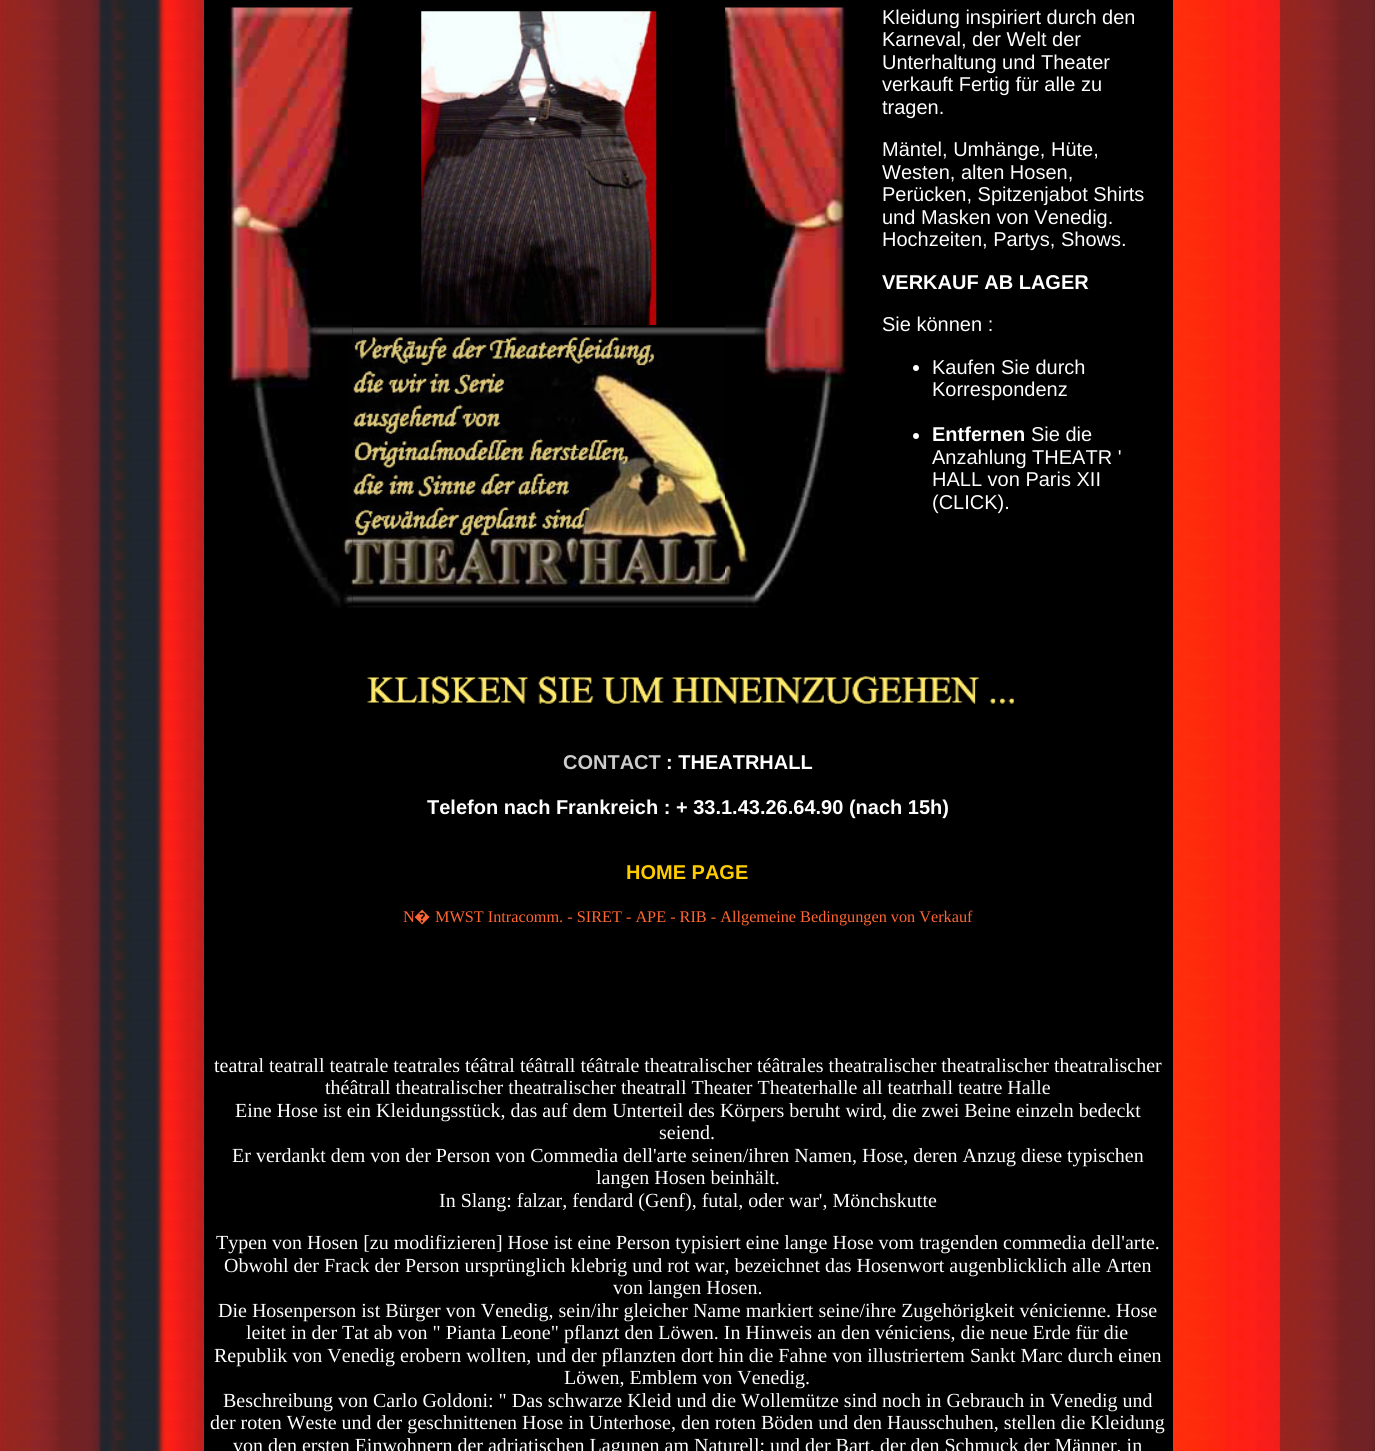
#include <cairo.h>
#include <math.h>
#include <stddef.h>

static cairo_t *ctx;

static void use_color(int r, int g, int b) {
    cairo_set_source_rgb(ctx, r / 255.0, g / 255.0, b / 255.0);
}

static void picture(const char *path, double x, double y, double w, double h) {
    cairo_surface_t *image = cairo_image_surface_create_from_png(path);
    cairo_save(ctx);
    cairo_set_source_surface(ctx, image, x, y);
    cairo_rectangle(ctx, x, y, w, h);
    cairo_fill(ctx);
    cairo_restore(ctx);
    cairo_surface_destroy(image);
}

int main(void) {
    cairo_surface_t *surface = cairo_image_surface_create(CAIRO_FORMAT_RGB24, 1375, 1451);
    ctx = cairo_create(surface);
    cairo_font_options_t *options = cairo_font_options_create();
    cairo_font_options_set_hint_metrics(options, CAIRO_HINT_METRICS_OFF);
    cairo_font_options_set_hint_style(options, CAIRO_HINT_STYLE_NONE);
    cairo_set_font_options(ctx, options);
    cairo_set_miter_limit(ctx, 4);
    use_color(255, 255, 255);
    cairo_paint(ctx);
    picture("img1.png", 0, 0, 1375, 1451);
    use_color(0, 0, 0);
    cairo_rectangle(ctx, 204, 0, 969, 1451);
    cairo_fill(ctx);
    picture("img2.png", 227, 7, 126, 601);
    picture("img3.png", 421, 11, 236, 314);
    picture("img4.png", 725, 7, 121, 601);
    picture("img5.png", 352, 327, 373, 281);
    cairo_select_font_face(ctx, "Liberation Sans", CAIRO_FONT_SLANT_NORMAL, CAIRO_FONT_WEIGHT_NORMAL);
    cairo_set_font_size(ctx, 20);
    use_color(255, 255, 255);
    cairo_move_to(ctx, 882, 24);
    cairo_show_text(ctx, "Kleidung inspiriert durch den");
    cairo_move_to(ctx, 882, 46);
    cairo_show_text(ctx, "Karneval, der Welt der");
    cairo_move_to(ctx, 882, 69);
    cairo_show_text(ctx, "Unterhaltung und Theater");
    cairo_move_to(ctx, 882, 91);
    cairo_show_text(ctx, "verkauft Fertig für alle zu");
    cairo_move_to(ctx, 882, 114);
    cairo_show_text(ctx, "tragen.");
    cairo_move_to(ctx, 882, 156);
    cairo_show_text(ctx, "Mäntel, Umhänge, Hüte,");
    cairo_move_to(ctx, 882, 179);
    cairo_show_text(ctx, "Westen, alten Hosen,");
    cairo_move_to(ctx, 882, 201);
    cairo_show_text(ctx, "Perücken, Spitzenjabot Shirts");
    cairo_move_to(ctx, 882, 224);
    cairo_show_text(ctx, "und Masken von Venedig.");
    cairo_move_to(ctx, 882, 246);
    cairo_show_text(ctx, "Hochzeiten, Partys, Shows.");
    cairo_select_font_face(ctx, "Liberation Sans", CAIRO_FONT_SLANT_NORMAL, CAIRO_FONT_WEIGHT_BOLD);
    cairo_move_to(ctx, 882, 289);
    cairo_show_text(ctx, "VERKAUF AB LAGER");
    cairo_select_font_face(ctx, "Liberation Sans", CAIRO_FONT_SLANT_NORMAL, CAIRO_FONT_WEIGHT_NORMAL);
    cairo_move_to(ctx, 882, 331);
    cairo_show_text(ctx, "Sie können :");
    cairo_new_path(ctx);
    cairo_arc(ctx, 916, 368, 3, 0, 2 * M_PI);
    cairo_fill(ctx);
    cairo_move_to(ctx, 932, 374);
    cairo_show_text(ctx, "Kaufen Sie durch");
    cairo_move_to(ctx, 932, 396);
    cairo_show_text(ctx, "Korrespondenz");
    cairo_new_path(ctx);
    cairo_arc(ctx, 916, 436, 3, 0, 2 * M_PI);
    cairo_fill(ctx);
    cairo_select_font_face(ctx, "Liberation Sans", CAIRO_FONT_SLANT_NORMAL, CAIRO_FONT_WEIGHT_BOLD);
    cairo_move_to(ctx, 932, 441);
    cairo_show_text(ctx, "Entfernen");
    cairo_select_font_face(ctx, "Liberation Sans", CAIRO_FONT_SLANT_NORMAL, CAIRO_FONT_WEIGHT_NORMAL);
    cairo_move_to(ctx, 1031, 441);
    cairo_show_text(ctx, "Sie die");
    cairo_move_to(ctx, 932, 464);
    cairo_show_text(ctx, "Anzahlung THEATR '");
    cairo_move_to(ctx, 932, 486);
    cairo_show_text(ctx, "HALL von Paris XII");
    cairo_move_to(ctx, 932, 509);
    cairo_show_text(ctx, "(CLICK).");
    picture("img6.png", 367, 676, 647, 28);
    cairo_select_font_face(ctx, "Liberation Sans", CAIRO_FONT_SLANT_NORMAL, CAIRO_FONT_WEIGHT_BOLD);
    use_color(204, 204, 204);
    cairo_move_to(ctx, 563, 769);
    cairo_show_text(ctx, "CONTACT");
    use_color(255, 255, 255);
    cairo_move_to(ctx, 666, 769);
    cairo_show_text(ctx, ": THEATRHALL");
    cairo_move_to(ctx, 427, 814);
    cairo_show_text(ctx, "Telefon nach Frankreich : + 33.1.43.26.64.90 (nach 15h)");
    use_color(255, 204, 0);
    cairo_move_to(ctx, 626, 879);
    cairo_show_text(ctx, "HOME PAGE");
    cairo_select_font_face(ctx, "Liberation Serif", CAIRO_FONT_SLANT_NORMAL, CAIRO_FONT_WEIGHT_NORMAL);
    cairo_set_font_size(ctx, 16.25);
    use_color(255, 102, 51);
    cairo_move_to(ctx, 403, 922);
    cairo_show_text(ctx, "N");
    cairo_select_font_face(ctx, "Noto Sans", CAIRO_FONT_SLANT_NORMAL, CAIRO_FONT_WEIGHT_NORMAL);
    cairo_move_to(ctx, 414, 922);
    cairo_show_text(ctx, "�");
    cairo_select_font_face(ctx, "Liberation Serif", CAIRO_FONT_SLANT_NORMAL, CAIRO_FONT_WEIGHT_NORMAL);
    cairo_move_to(ctx, 435, 922);
    cairo_show_text(ctx, "MWST Intracomm. - SIRET - APE - RIB - Allgemeine Bedingungen von Verkauf");
    cairo_set_font_size(ctx, 20);
    use_color(255, 255, 255);
    cairo_move_to(ctx, 214, 1072);
    cairo_show_text(ctx, "teatral teatrall teatrale teatrales téâtral téâtrall téâtrale theatralischer téâtrales theatralischer theatralischer theatralischer");
    cairo_move_to(ctx, 325, 1094);
    cairo_show_text(ctx, "théâtrall theatralischer theatralischer theatrall Theater Theaterhalle all teatrhall teatre Halle");
    cairo_move_to(ctx, 235, 1117);
    cairo_show_text(ctx, "Eine Hose ist ein Kleidungsstück, das auf dem Unterteil des Körpers beruht wird, die zwei Beine einzeln bedeckt");
    cairo_move_to(ctx, 659, 1139);
    cairo_show_text(ctx, "seiend.");
    cairo_move_to(ctx, 232, 1162);
    cairo_show_text(ctx, "Er verdankt dem von der Person von Commedia dell'arte seinen/ihren Namen, Hose, deren Anzug diese typischen");
    cairo_move_to(ctx, 596, 1184);
    cairo_show_text(ctx, "langen Hosen beinhält.");
    cairo_move_to(ctx, 439, 1207);
    cairo_show_text(ctx, "In Slang: falzar, fendard (Genf), futal, oder war', Mönchskutte");
    cairo_move_to(ctx, 216, 1249);
    cairo_show_text(ctx, "Typen von Hosen [zu modifizieren] Hose ist eine Person typisiert eine lange Hose vom tragenden commedia dell'arte.");
    cairo_move_to(ctx, 224, 1272);
    cairo_show_text(ctx, "Obwohl der Frack der Person ursprünglich klebrig und rot war, bezeichnet das Hosenwort augenblicklich alle Arten");
    cairo_move_to(ctx, 613, 1294);
    cairo_show_text(ctx, "von langen Hosen.");
    cairo_move_to(ctx, 218, 1317);
    cairo_show_text(ctx, "Die Hosenperson ist Bürger von Venedig, sein/ihr gleicher Name markiert seine/ihre Zugehörigkeit vénicienne. Hose");
    cairo_move_to(ctx, 246, 1339);
    cairo_show_text(ctx, "leitet in der Tat ab von \" Pianta Leone\" pflanzt den Löwen. In Hinweis an den véniciens, die neue Erde für die");
    cairo_move_to(ctx, 214, 1362);
    cairo_show_text(ctx, "Republik von Venedig erobern wollten, und der pflanzten dort hin die Fahne von illustriertem Sankt Marc durch einen");
    cairo_move_to(ctx, 564, 1384);
    cairo_show_text(ctx, "Löwen, Emblem von Venedig.");
    cairo_move_to(ctx, 223, 1407);
    cairo_show_text(ctx, "Beschreibung von Carlo Goldoni: \" Das schwarze Kleid und die Wollemütze sind noch in Gebrauch in Venedig und");
    cairo_move_to(ctx, 210, 1429);
    cairo_show_text(ctx, "der roten Weste und der geschnittenen Hose in Unterhose, den roten Böden und den Hausschuhen, stellen die Kleidung");
    cairo_move_to(ctx, 233, 1452);
    cairo_show_text(ctx, "von den ersten Einwohnern der adriatischen Lagunen am Naturell; und der Bart, der den Schmuck der Männer, in");
    cairo_surface_write_to_png(surface, "result.png");
    cairo_font_options_destroy(options);
    cairo_destroy(ctx);
    cairo_surface_destroy(surface);
    return 0;
}
